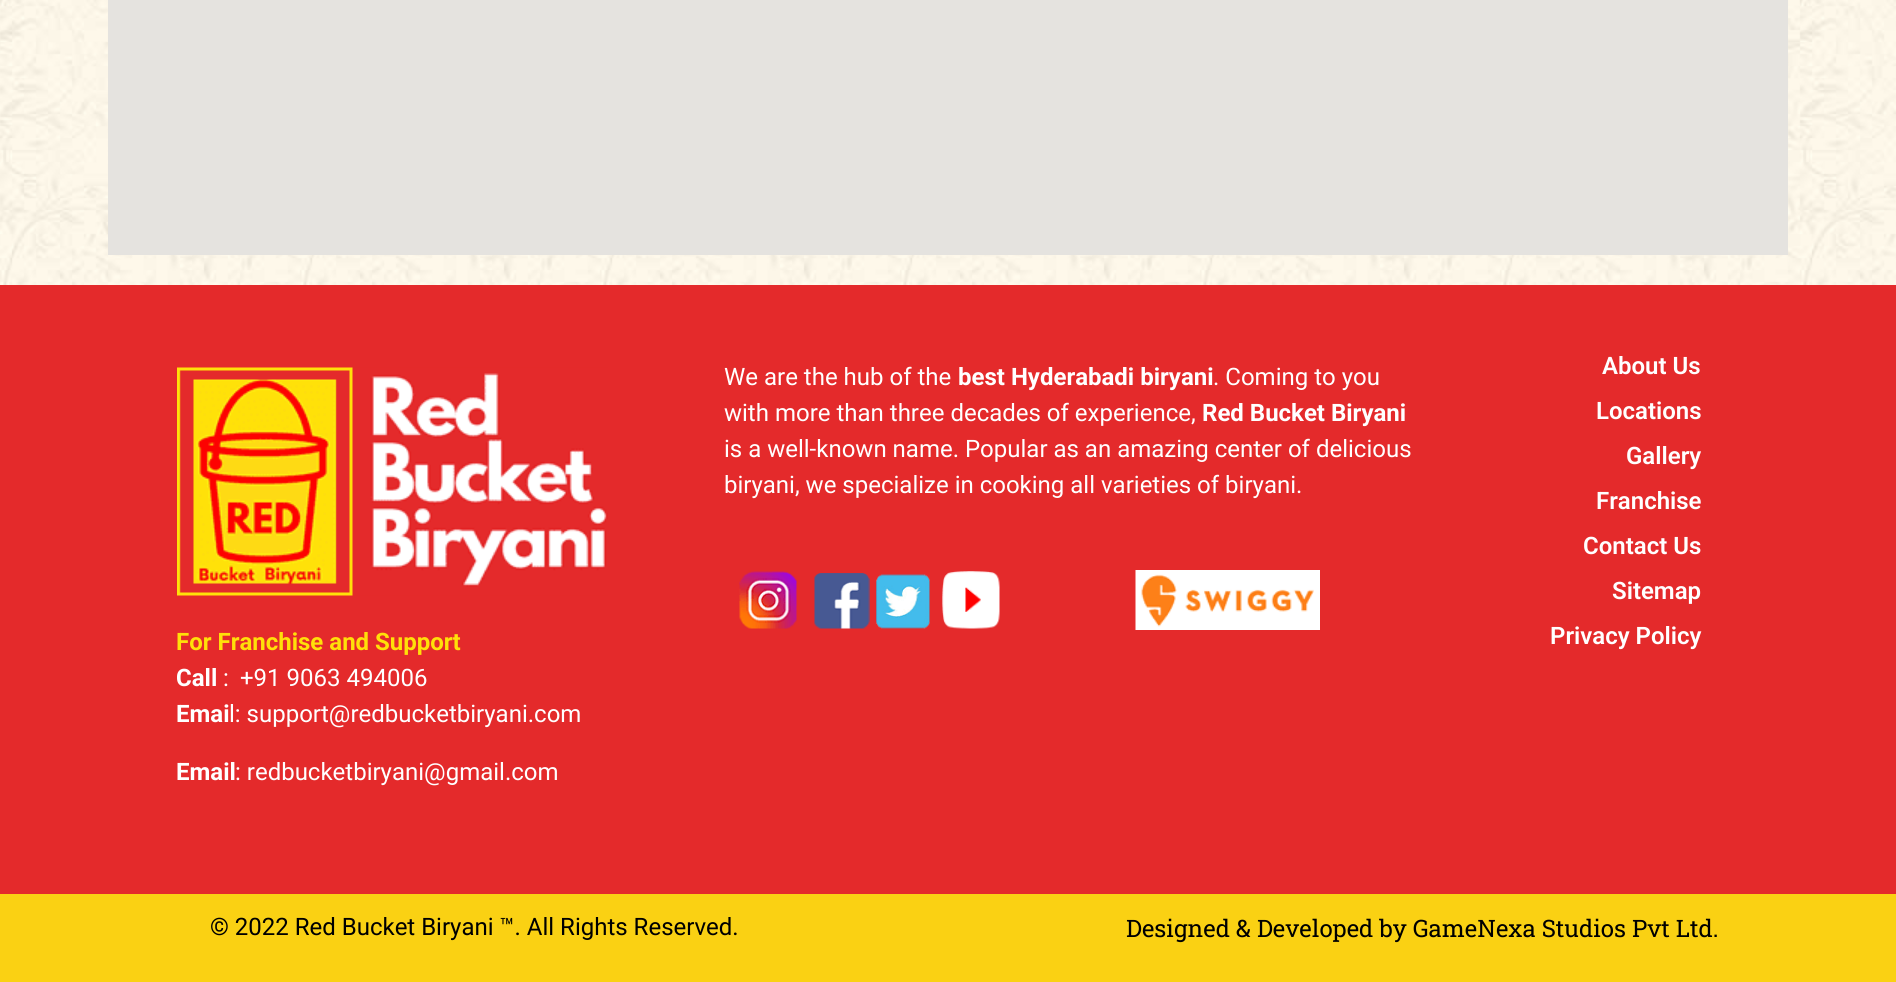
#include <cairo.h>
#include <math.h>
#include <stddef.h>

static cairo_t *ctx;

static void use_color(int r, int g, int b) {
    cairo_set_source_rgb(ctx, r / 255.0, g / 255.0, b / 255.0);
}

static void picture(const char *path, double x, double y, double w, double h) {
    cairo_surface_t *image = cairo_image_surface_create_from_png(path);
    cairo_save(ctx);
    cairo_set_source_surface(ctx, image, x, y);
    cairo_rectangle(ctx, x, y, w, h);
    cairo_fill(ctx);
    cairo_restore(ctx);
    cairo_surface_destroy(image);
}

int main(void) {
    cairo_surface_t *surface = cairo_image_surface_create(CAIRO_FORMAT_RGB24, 1896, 982);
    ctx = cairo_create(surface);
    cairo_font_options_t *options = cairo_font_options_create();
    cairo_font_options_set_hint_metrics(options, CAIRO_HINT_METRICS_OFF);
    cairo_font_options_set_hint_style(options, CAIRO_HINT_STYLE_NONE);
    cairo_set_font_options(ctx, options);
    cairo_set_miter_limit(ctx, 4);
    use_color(255, 255, 255);
    cairo_paint(ctx);
    picture("img1.png", 0, 0, 1896, 285);
    use_color(229, 227, 223);
    cairo_rectangle(ctx, 108, 0, 1680, 255);
    cairo_fill(ctx);
    use_color(228, 42, 43);
    cairo_rectangle(ctx, 0, 285, 1896, 609);
    cairo_fill(ctx);
    cairo_select_font_face(ctx, "Roboto", CAIRO_FONT_SLANT_NORMAL, CAIRO_FONT_WEIGHT_NORMAL);
    cairo_set_font_size(ctx, 24);
    use_color(255, 255, 255);
    cairo_move_to(ctx, 724, 385);
    cairo_show_text(ctx, "We are the hub of the");
    cairo_select_font_face(ctx, "Roboto", CAIRO_FONT_SLANT_NORMAL, CAIRO_FONT_WEIGHT_BOLD);
    cairo_move_to(ctx, 958, 385);
    cairo_show_text(ctx, "best Hyderabadi biryani");
    cairo_select_font_face(ctx, "Roboto", CAIRO_FONT_SLANT_NORMAL, CAIRO_FONT_WEIGHT_NORMAL);
    cairo_move_to(ctx, 1213, 385);
    cairo_show_text(ctx, ". Coming to you");
    cairo_move_to(ctx, 724, 421);
    cairo_show_text(ctx, "with more than three decades of experience,");
    cairo_select_font_face(ctx, "Roboto", CAIRO_FONT_SLANT_NORMAL, CAIRO_FONT_WEIGHT_BOLD);
    cairo_move_to(ctx, 1202, 421);
    cairo_show_text(ctx, "Red Bucket Biryani");
    cairo_select_font_face(ctx, "Roboto", CAIRO_FONT_SLANT_NORMAL, CAIRO_FONT_WEIGHT_NORMAL);
    cairo_move_to(ctx, 724, 457);
    cairo_show_text(ctx, "is a well-known name. Popular as an amazing center of delicious");
    cairo_move_to(ctx, 724, 493);
    cairo_show_text(ctx, "biryani, we specialize in cooking all varieties of biryani.");
    picture("img2.png", 739, 571, 58, 58);
    picture("img3.png", 814, 573, 56, 56);
    picture("img4.png", 876, 574, 54, 55);
    picture("img5.png", 942, 571, 58, 58);
    picture("img6.png", 1135, 570, 185, 60);
    cairo_select_font_face(ctx, "Roboto SemiBold", CAIRO_FONT_SLANT_NORMAL, CAIRO_FONT_WEIGHT_NORMAL);
    cairo_move_to(ctx, 1602, 374);
    cairo_show_text(ctx, "About Us");
    cairo_move_to(ctx, 1596, 419);
    cairo_show_text(ctx, "Locations");
    cairo_move_to(ctx, 1626, 464);
    cairo_show_text(ctx, "Gallery");
    cairo_move_to(ctx, 1596, 509);
    cairo_show_text(ctx, "Franchise");
    cairo_move_to(ctx, 1583, 554);
    cairo_show_text(ctx, "Contact Us");
    cairo_move_to(ctx, 1612, 599);
    cairo_show_text(ctx, "Sitemap");
    cairo_move_to(ctx, 1550, 644);
    cairo_show_text(ctx, "Privacy Policy");
    picture("img7.png", 177, 367, 431, 229);
    cairo_select_font_face(ctx, "Roboto", CAIRO_FONT_SLANT_NORMAL, CAIRO_FONT_WEIGHT_BOLD);
    use_color(255, 224, 9);
    cairo_move_to(ctx, 176, 650);
    cairo_show_text(ctx, "For Franchise and Support");
    use_color(255, 255, 255);
    cairo_move_to(ctx, 176, 686);
    cairo_show_text(ctx, "Call");
    cairo_select_font_face(ctx, "Roboto", CAIRO_FONT_SLANT_NORMAL, CAIRO_FONT_WEIGHT_NORMAL);
    cairo_move_to(ctx, 223, 686);
    cairo_show_text(ctx, ":");
    cairo_move_to(ctx, 240, 686);
    cairo_show_text(ctx, "+91 9063 494006");
    cairo_select_font_face(ctx, "Roboto", CAIRO_FONT_SLANT_NORMAL, CAIRO_FONT_WEIGHT_BOLD);
    cairo_move_to(ctx, 176, 722);
    cairo_show_text(ctx, "Emai");
    cairo_select_font_face(ctx, "Roboto", CAIRO_FONT_SLANT_NORMAL, CAIRO_FONT_WEIGHT_NORMAL);
    cairo_move_to(ctx, 229, 722);
    cairo_show_text(ctx, "l: support@redbucketbiryani.com");
    cairo_select_font_face(ctx, "Roboto", CAIRO_FONT_SLANT_NORMAL, CAIRO_FONT_WEIGHT_BOLD);
    cairo_move_to(ctx, 176, 780);
    cairo_show_text(ctx, "Email");
    cairo_select_font_face(ctx, "Roboto", CAIRO_FONT_SLANT_NORMAL, CAIRO_FONT_WEIGHT_NORMAL);
    cairo_move_to(ctx, 235, 780);
    cairo_show_text(ctx, ": redbucketbiryani@gmail.com");
    use_color(250, 209, 19);
    cairo_rectangle(ctx, 0, 894, 1896, 88);
    cairo_fill(ctx);
    use_color(0, 0, 0);
    cairo_move_to(ctx, 210, 935);
    cairo_show_text(ctx, "© 2022 Red Bucket Biryani ™. All Rights Reserved.");
    cairo_select_font_face(ctx, "Roboto Slab", CAIRO_FONT_SLANT_NORMAL, CAIRO_FONT_WEIGHT_NORMAL);
    cairo_move_to(ctx, 1126, 937);
    cairo_show_text(ctx, "Designed & Developed by GameNexa Studios Pvt Ltd.");
    cairo_surface_write_to_png(surface, "result.png");
    cairo_font_options_destroy(options);
    cairo_destroy(ctx);
    cairo_surface_destroy(surface);
    return 0;
}
